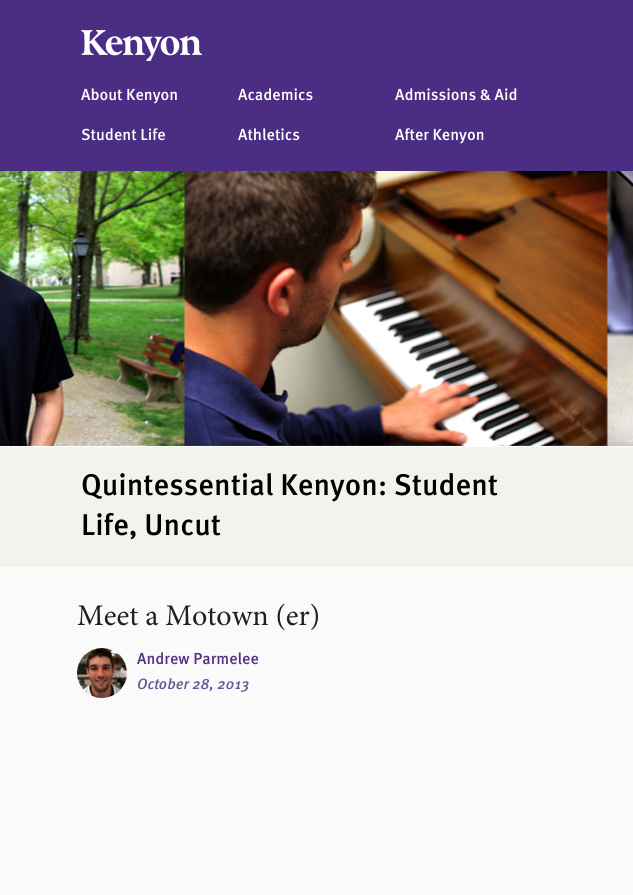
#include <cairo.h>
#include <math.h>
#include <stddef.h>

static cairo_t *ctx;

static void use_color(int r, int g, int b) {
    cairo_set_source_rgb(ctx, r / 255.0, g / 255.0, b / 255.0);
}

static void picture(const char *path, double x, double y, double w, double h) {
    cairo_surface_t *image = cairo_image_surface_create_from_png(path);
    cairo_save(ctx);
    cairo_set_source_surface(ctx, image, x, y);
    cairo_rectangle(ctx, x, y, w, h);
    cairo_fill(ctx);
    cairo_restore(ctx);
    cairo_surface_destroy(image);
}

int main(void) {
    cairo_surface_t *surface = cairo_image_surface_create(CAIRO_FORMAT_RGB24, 633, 895);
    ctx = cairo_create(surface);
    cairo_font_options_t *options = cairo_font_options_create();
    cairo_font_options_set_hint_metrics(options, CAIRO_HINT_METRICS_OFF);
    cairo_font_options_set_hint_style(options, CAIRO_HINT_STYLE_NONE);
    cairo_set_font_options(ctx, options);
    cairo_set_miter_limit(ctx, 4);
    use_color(250, 250, 250);
    cairo_paint(ctx);
    use_color(75, 46, 132);
    cairo_rectangle(ctx, 0, 0, 633, 171);
    cairo_fill(ctx);
    picture("img1.png", 81, 30, 121, 31);
    cairo_select_font_face(ctx, "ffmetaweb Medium", CAIRO_FONT_SLANT_NORMAL, CAIRO_FONT_WEIGHT_NORMAL);
    cairo_set_font_size(ctx, 16);
    use_color(255, 255, 255);
    cairo_move_to(ctx, 81, 100);
    cairo_show_text(ctx, "About Kenyon");
    cairo_move_to(ctx, 238, 100);
    cairo_show_text(ctx, "Academics");
    cairo_move_to(ctx, 395, 100);
    cairo_show_text(ctx, "Admissions & Aid");
    cairo_move_to(ctx, 81, 140);
    cairo_show_text(ctx, "Student Life");
    cairo_move_to(ctx, 238, 140);
    cairo_show_text(ctx, "Athletics");
    cairo_move_to(ctx, 395, 140);
    cairo_show_text(ctx, "After Kenyon");
    picture("img2.png", 0, 171, 633, 275);
    use_color(244, 242, 237);
    cairo_rectangle(ctx, 0, 447, 633, 120);
    cairo_fill(ctx);
    use_color(255, 255, 255);
    cairo_rectangle(ctx, 0, 446, 633, 1);
    cairo_fill(ctx);
    cairo_set_font_size(ctx, 30);
    use_color(0, 0, 0);
    cairo_move_to(ctx, 81, 495);
    cairo_show_text(ctx, "Quintessential Kenyon: Student");
    cairo_move_to(ctx, 81, 535);
    cairo_show_text(ctx, "Life, Uncut");
    cairo_select_font_face(ctx, "Minion", CAIRO_FONT_SLANT_NORMAL, CAIRO_FONT_WEIGHT_NORMAL);
    use_color(34, 30, 36);
    cairo_move_to(ctx, 77, 625);
    cairo_show_text(ctx, "Meet a Motown (er)");
    picture("img3.png", 77, 648, 50, 50);
    cairo_select_font_face(ctx, "ffmetaweb Medium", CAIRO_FONT_SLANT_NORMAL, CAIRO_FONT_WEIGHT_NORMAL);
    cairo_set_font_size(ctx, 16);
    use_color(82, 51, 134);
    cairo_move_to(ctx, 137, 664);
    cairo_show_text(ctx, "Andrew Parmelee");
    cairo_select_font_face(ctx, "ffmetaweb Medium", CAIRO_FONT_SLANT_ITALIC, CAIRO_FONT_WEIGHT_NORMAL);
    cairo_set_font_size(ctx, 15);
    use_color(101, 89, 146);
    cairo_move_to(ctx, 137, 689);
    cairo_show_text(ctx, "October 28, 2013");
    cairo_surface_write_to_png(surface, "result.png");
    cairo_font_options_destroy(options);
    cairo_destroy(ctx);
    cairo_surface_destroy(surface);
    return 0;
}
